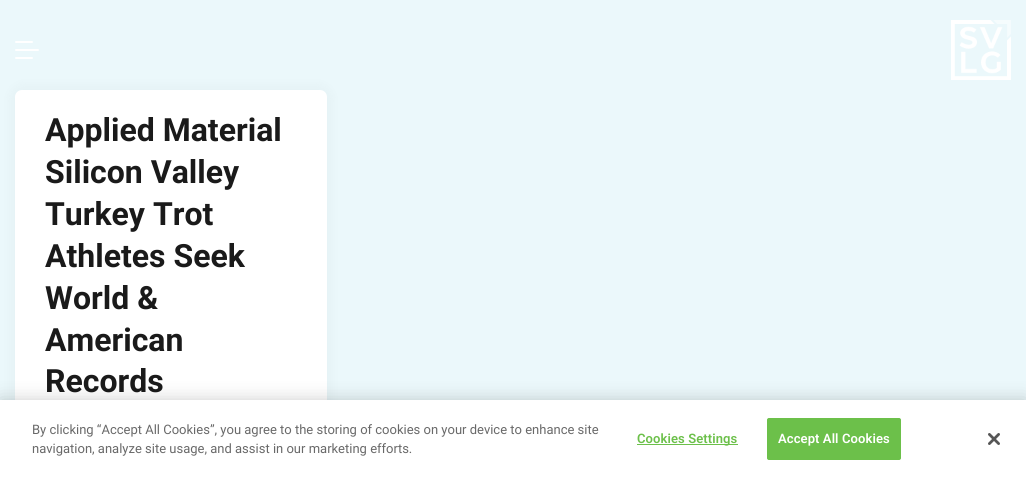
#include <cairo.h>
#include <math.h>
#include <stddef.h>

static cairo_t *ctx;

static void use_color(int r, int g, int b) {
    cairo_set_source_rgb(ctx, r / 255.0, g / 255.0, b / 255.0);
}

static void spaced_text(double x, double y, const char *s, double letter, double word) {
    cairo_move_to(ctx, x, y);
    while (*s) {
        char ch[5] = {0};
        int n = 0;
        do ch[n++] = *s++; while ((*s & 0xC0) == 0x80);
        cairo_show_text(ctx, ch);
        cairo_rel_move_to(ctx, letter + word * (*ch == ' '), 0);
    }
}

static void round_rect(double x, double y, double w, double h, double r) {
    cairo_new_sub_path(ctx);
    cairo_arc(ctx, x + w - r, y + h - r, r, 0, M_PI / 2);
    cairo_arc(ctx, x + r, y + h - r, r, M_PI / 2, M_PI);
    cairo_arc(ctx, x + r, y + r, r, M_PI, 1.5 * M_PI);
    cairo_arc(ctx, x + w - r, y + r, r, 1.5 * M_PI, 2 * M_PI);
    cairo_close_path(ctx);
}

static void shadow(double x, double y, double w, double h, double r, double blur, double alpha) {
    cairo_push_group_with_content(ctx, CAIRO_CONTENT_ALPHA);
    cairo_set_operator(ctx, CAIRO_OPERATOR_SOURCE);
    for (int i = 15; i >= -15 && fmin(w, h) + blur * i / 3 > 0; i -= 2) {
        double e = blur * i / 6;
        cairo_set_source_rgba(ctx, 0, 0, 0, alpha * erfc((i - 1) / 8.5) / 2);
        round_rect(x - e, y - e, w + 2 * e, h + 2 * e, fmax(0, fmin(r + e + blur * .6, fmin(w, h) / 2 + e)));
        cairo_fill(ctx);
    }
    cairo_pattern_t *soft = cairo_pop_group(ctx);
    cairo_mask(ctx, soft);
    cairo_pattern_destroy(soft);
}

static void picture(const char *path, double x, double y, double w, double h) {
    cairo_surface_t *image = cairo_image_surface_create_from_png(path);
    cairo_save(ctx);
    cairo_set_source_surface(ctx, image, x, y);
    cairo_rectangle(ctx, x, y, w, h);
    cairo_fill(ctx);
    cairo_restore(ctx);
    cairo_surface_destroy(image);
}

int main(void) {
    cairo_surface_t *surface = cairo_image_surface_create(CAIRO_FORMAT_RGB24, 1026, 482);
    ctx = cairo_create(surface);
    cairo_font_options_t *options = cairo_font_options_create();
    cairo_font_options_set_hint_metrics(options, CAIRO_HINT_METRICS_OFF);
    cairo_font_options_set_hint_style(options, CAIRO_HINT_STYLE_NONE);
    cairo_set_font_options(ctx, options);
    cairo_set_miter_limit(ctx, 4);
    use_color(235, 248, 251);
    cairo_paint(ctx);
    use_color(255, 255, 255);
    round_rect(15, 49, 24, 2, 1);
    cairo_fill(ctx);
    round_rect(15, 41, 18, 2, 1);
    cairo_fill(ctx);
    round_rect(15, 57, 18, 2, 1);
    cairo_fill(ctx);
    picture("img1.png", 951, 20, 60, 60);
    use_color(26, 26, 26);
    shadow(15, 90, 312, 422, 7, 7.5, 0.05);
    use_color(255, 255, 255);
    round_rect(15, 90, 312, 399, 7);
    cairo_fill(ctx);
    cairo_select_font_face(ctx, "Roboto", CAIRO_FONT_SLANT_NORMAL, CAIRO_FONT_WEIGHT_BOLD);
    cairo_set_font_size(ctx, 32);
    use_color(26, 26, 26);
    cairo_move_to(ctx, 45, 141);
    cairo_show_text(ctx, "Applied Material");
    cairo_move_to(ctx, 45, 183);
    cairo_show_text(ctx, "Silicon Valley");
    cairo_move_to(ctx, 45, 225);
    cairo_show_text(ctx, "Turkey Trot");
    cairo_move_to(ctx, 45, 267);
    cairo_show_text(ctx, "Athletes Seek");
    cairo_move_to(ctx, 45, 309);
    cairo_show_text(ctx, "World &");
    cairo_move_to(ctx, 45, 351);
    cairo_show_text(ctx, "American");
    cairo_move_to(ctx, 45, 392);
    cairo_show_text(ctx, "Records");
    use_color(0, 0, 0);
    shadow(0, 400, 1026, 82, 0, 9, 0.2);
    use_color(255, 255, 255);
    cairo_rectangle(ctx, 0, 400, 1026, 82);
    cairo_fill(ctx);
    cairo_select_font_face(ctx, "Roboto", CAIRO_FONT_SLANT_NORMAL, CAIRO_FONT_WEIGHT_NORMAL);
    cairo_set_font_size(ctx, 13);
    use_color(105, 105, 105);
    cairo_move_to(ctx, 32, 434);
    cairo_show_text(ctx, "By clicking “Accept All Cookies”, you agree to the storing of cookies on your device to enhance site");
    cairo_move_to(ctx, 32, 453);
    cairo_show_text(ctx, "navigation, analyze site usage, and assist in our marketing efforts.");
    use_color(108, 192, 74);
    cairo_rectangle(ctx, 637, 444, 101, 1);
    cairo_fill(ctx);
    cairo_select_font_face(ctx, "Roboto SemiBold", CAIRO_FONT_SLANT_NORMAL, CAIRO_FONT_WEIGHT_NORMAL);
    spaced_text(637, 443, "Cookies Settings", 0.1, 0);
    round_rect(767.5, 418.5, 133, 41, 1.5);
    cairo_fill_preserve(ctx);
    cairo_set_line_width(ctx, 1);
    cairo_stroke(ctx);
    use_color(255, 255, 255);
    spaced_text(778, 443, "Accept All Cookies", 0.1, 0);
    picture("img2.png", 988, 433, 12, 12);
    cairo_surface_write_to_png(surface, "result.png");
    cairo_font_options_destroy(options);
    cairo_destroy(ctx);
    cairo_surface_destroy(surface);
    return 0;
}
